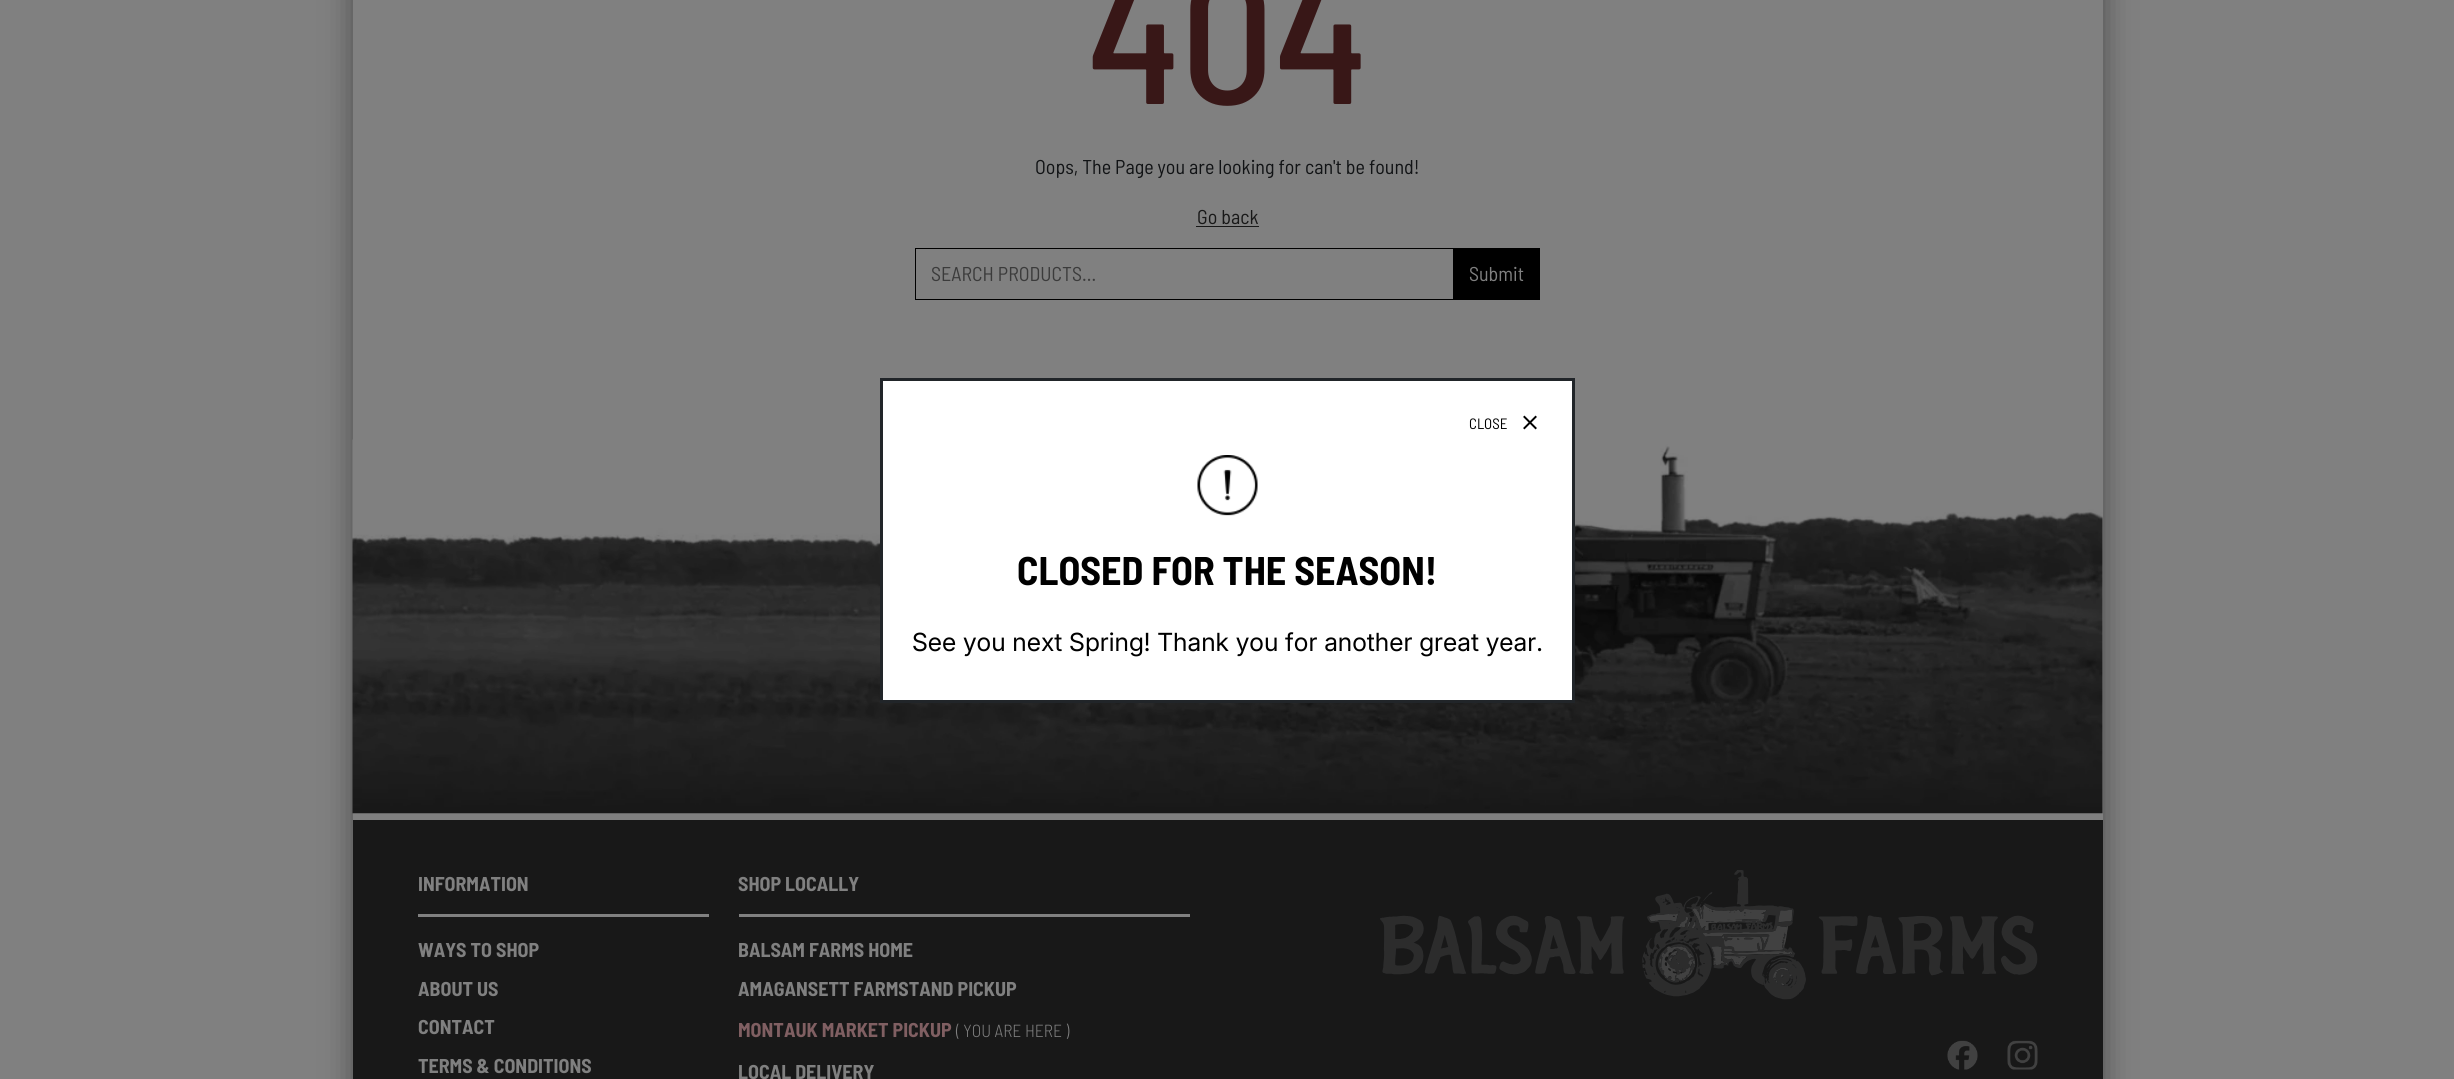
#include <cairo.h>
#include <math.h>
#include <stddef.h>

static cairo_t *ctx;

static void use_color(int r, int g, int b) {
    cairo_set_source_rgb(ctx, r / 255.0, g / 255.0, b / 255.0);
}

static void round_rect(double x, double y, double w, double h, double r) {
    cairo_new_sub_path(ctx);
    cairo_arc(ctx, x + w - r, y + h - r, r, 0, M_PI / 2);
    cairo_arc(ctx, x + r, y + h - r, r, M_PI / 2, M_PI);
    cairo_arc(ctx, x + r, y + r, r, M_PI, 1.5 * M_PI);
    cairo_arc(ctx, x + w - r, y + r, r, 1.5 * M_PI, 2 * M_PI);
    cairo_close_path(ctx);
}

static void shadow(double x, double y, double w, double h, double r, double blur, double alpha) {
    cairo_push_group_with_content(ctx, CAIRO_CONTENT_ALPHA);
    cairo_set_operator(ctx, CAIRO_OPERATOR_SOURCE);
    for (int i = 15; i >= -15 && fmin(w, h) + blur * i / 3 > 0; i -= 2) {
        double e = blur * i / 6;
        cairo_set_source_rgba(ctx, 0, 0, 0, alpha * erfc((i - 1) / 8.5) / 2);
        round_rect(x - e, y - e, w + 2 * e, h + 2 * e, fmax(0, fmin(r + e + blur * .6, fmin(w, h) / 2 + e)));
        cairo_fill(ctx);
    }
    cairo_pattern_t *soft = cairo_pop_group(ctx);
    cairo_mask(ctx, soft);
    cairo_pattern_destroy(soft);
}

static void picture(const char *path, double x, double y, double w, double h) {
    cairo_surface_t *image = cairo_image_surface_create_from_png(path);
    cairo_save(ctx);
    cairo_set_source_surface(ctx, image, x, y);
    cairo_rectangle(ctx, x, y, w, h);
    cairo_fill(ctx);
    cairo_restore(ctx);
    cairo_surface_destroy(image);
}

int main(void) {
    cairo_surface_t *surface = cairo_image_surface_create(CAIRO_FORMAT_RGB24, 2454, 1079);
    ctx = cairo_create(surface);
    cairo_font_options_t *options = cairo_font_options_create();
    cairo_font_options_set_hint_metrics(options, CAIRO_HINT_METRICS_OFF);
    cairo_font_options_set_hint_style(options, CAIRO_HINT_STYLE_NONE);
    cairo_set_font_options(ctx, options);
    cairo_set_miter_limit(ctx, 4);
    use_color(128, 128, 128);
    cairo_paint(ctx);
    cairo_save(ctx);
    cairo_set_fill_rule(ctx, CAIRO_FILL_RULE_EVEN_ODD);
    cairo_new_path(ctx);
    cairo_move_to(ctx, 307, 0);
    cairo_line_to(ctx, 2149, 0);
    cairo_line_to(ctx, 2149, 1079);
    cairo_line_to(ctx, 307, 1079);
    cairo_close_path(ctx);
    cairo_move_to(ctx, 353, -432);
    cairo_line_to(ctx, 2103, -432);
    cairo_line_to(ctx, 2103, 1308);
    cairo_line_to(ctx, 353, 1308);
    cairo_close_path(ctx);
    cairo_clip(ctx);
    use_color(0, 0, 0);
    shadow(353, -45, 1750, 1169, 0, 15, 0.4);
    cairo_restore(ctx);
    cairo_select_font_face(ctx, "Barlow Semi Condensed Medium", CAIRO_FONT_SLANT_NORMAL, CAIRO_FONT_WEIGHT_NORMAL);
    cairo_set_font_size(ctx, 185);
    use_color(56, 23, 23);
    cairo_move_to(ctx, 1087, 104);
    cairo_show_text(ctx, "404");
    cairo_select_font_face(ctx, "Barlow Semi Condensed", CAIRO_FONT_SLANT_NORMAL, CAIRO_FONT_WEIGHT_NORMAL);
    cairo_set_font_size(ctx, 20);
    use_color(17, 19, 21);
    cairo_move_to(ctx, 1035, 174);
    cairo_show_text(ctx, "Oops, The Page you are looking for can't be found!");
    use_color(24, 24, 24);
    cairo_move_to(ctx, 1197, 224);
    cairo_show_text(ctx, "Go back");
    cairo_rectangle(ctx, 1196, 226, 63, 1);
    cairo_fill(ctx);
    cairo_rectangle(ctx, 915.5, 248.5, 624, 51);
    use_color(0, 0, 0);
    cairo_set_line_width(ctx, 1);
    cairo_stroke(ctx);
    use_color(59, 59, 59);
    cairo_move_to(ctx, 931, 281);
    cairo_show_text(ctx, "SEARCH PRODUCTS...");
    use_color(0, 0, 0);
    cairo_rectangle(ctx, 1453, 249, 86, 50);
    cairo_fill(ctx);
    use_color(128, 128, 128);
    cairo_move_to(ctx, 1469, 281);
    cairo_show_text(ctx, "Submit");
    picture("img3.png", 352, 439, 1751, 375);
    use_color(255, 255, 255);
    cairo_rectangle(ctx, 881.5, 379.5, 692, 322);
    cairo_fill_preserve(ctx);
    use_color(33, 37, 41);
    cairo_set_line_width(ctx, 3);
    cairo_stroke(ctx);
    cairo_set_font_size(ctx, 15);
    use_color(0, 0, 0);
    cairo_move_to(ctx, 1469, 429);
    cairo_show_text(ctx, "CLOSE");
    picture("img1.png", 1523, 415, 14, 15);
    picture("img2.png", 1197, 455, 61, 61);
    cairo_select_font_face(ctx, "Barlow Semi Condensed", CAIRO_FONT_SLANT_NORMAL, CAIRO_FONT_WEIGHT_BOLD);
    cairo_set_font_size(ctx, 40);
    cairo_move_to(ctx, 1017, 585);
    cairo_show_text(ctx, "CLOSED FOR THE SEASON!");
    cairo_select_font_face(ctx, "Inter", CAIRO_FONT_SLANT_NORMAL, CAIRO_FONT_WEIGHT_NORMAL);
    cairo_set_font_size(ctx, 25);
    cairo_move_to(ctx, 912, 651);
    cairo_show_text(ctx, "See you next Spring! Thank you for another great year.");
    use_color(24, 24, 24);
    cairo_rectangle(ctx, 353, 820, 1750, 259);
    cairo_fill(ctx);
    use_color(128, 128, 128);
    cairo_rectangle(ctx, 418, 914, 291, 3);
    cairo_fill(ctx);
    cairo_select_font_face(ctx, "Barlow Semi Condensed", CAIRO_FONT_SLANT_NORMAL, CAIRO_FONT_WEIGHT_BOLD);
    cairo_set_font_size(ctx, 20);
    cairo_move_to(ctx, 418, 891);
    cairo_show_text(ctx, "INFORMATION");
    cairo_move_to(ctx, 418, 957);
    cairo_show_text(ctx, "WAYS TO SHOP");
    cairo_move_to(ctx, 418, 996);
    cairo_show_text(ctx, "ABOUT US");
    cairo_move_to(ctx, 418, 1034);
    cairo_show_text(ctx, "CONTACT");
    cairo_move_to(ctx, 418, 1073);
    cairo_show_text(ctx, "TERMS & CONDITIONS");
    cairo_rectangle(ctx, 739, 914, 451, 3);
    cairo_fill(ctx);
    cairo_move_to(ctx, 738, 891);
    cairo_show_text(ctx, "SHOP LOCALLY");
    cairo_move_to(ctx, 738, 957);
    cairo_show_text(ctx, "BALSAM FARMS HOME");
    cairo_move_to(ctx, 738, 996);
    cairo_show_text(ctx, "AMAGANSETT FARMSTAND PICKUP");
    use_color(128, 95, 98);
    cairo_move_to(ctx, 738, 1037);
    cairo_show_text(ctx, "MONTAUK MARKET PICKUP");
    cairo_select_font_face(ctx, "Barlow Semi Condensed Light", CAIRO_FONT_SLANT_NORMAL, CAIRO_FONT_WEIGHT_NORMAL);
    cairo_set_font_size(ctx, 17.5);
    use_color(128, 128, 128);
    cairo_move_to(ctx, 956, 1037);
    cairo_show_text(ctx, "( YOU ARE HERE )");
    cairo_select_font_face(ctx, "Barlow Semi Condensed", CAIRO_FONT_SLANT_NORMAL, CAIRO_FONT_WEIGHT_BOLD);
    cairo_set_font_size(ctx, 20);
    cairo_move_to(ctx, 738, 1079);
    cairo_show_text(ctx, "LOCAL DELIVERY");
    picture("img4.png", 1380, 870, 658, 130);
    picture("img5.png", 1947, 1040, 31, 30);
    picture("img6.png", 2007, 1040, 31, 30);
    cairo_surface_write_to_png(surface, "result.png");
    cairo_font_options_destroy(options);
    cairo_destroy(ctx);
    cairo_surface_destroy(surface);
    return 0;
}
